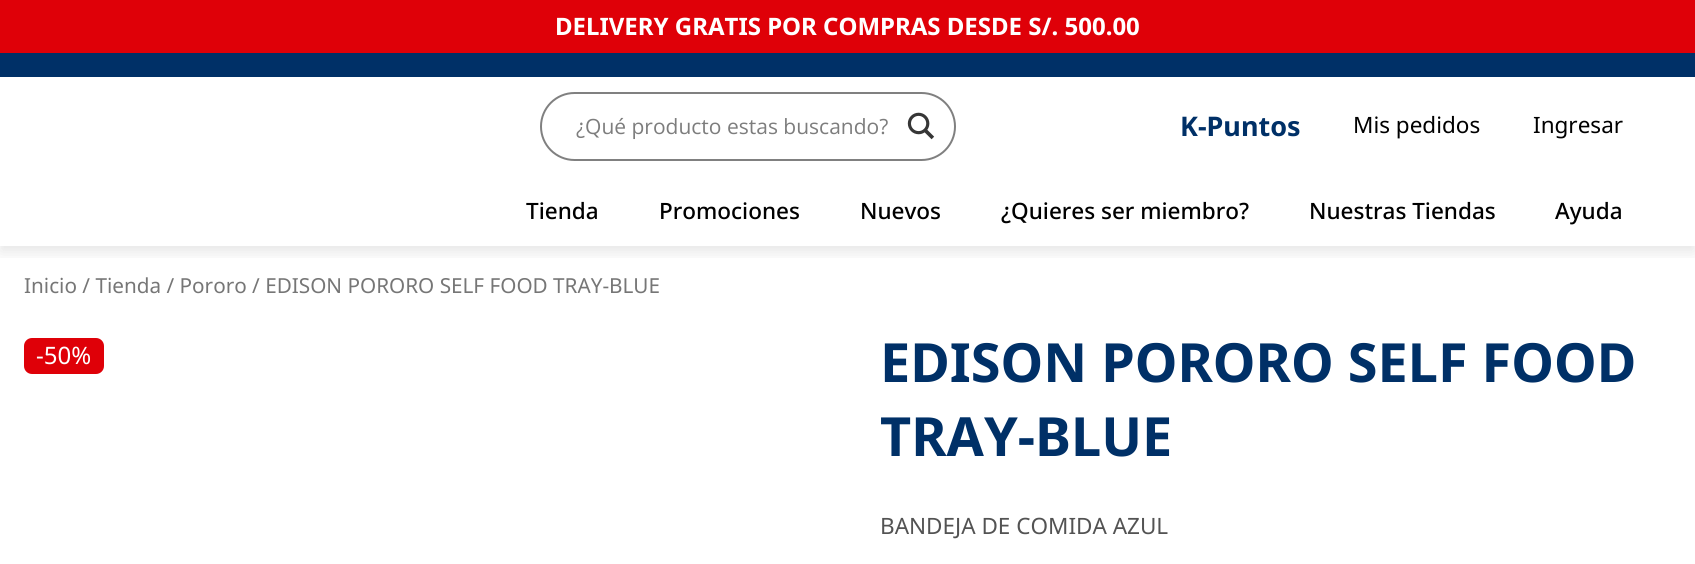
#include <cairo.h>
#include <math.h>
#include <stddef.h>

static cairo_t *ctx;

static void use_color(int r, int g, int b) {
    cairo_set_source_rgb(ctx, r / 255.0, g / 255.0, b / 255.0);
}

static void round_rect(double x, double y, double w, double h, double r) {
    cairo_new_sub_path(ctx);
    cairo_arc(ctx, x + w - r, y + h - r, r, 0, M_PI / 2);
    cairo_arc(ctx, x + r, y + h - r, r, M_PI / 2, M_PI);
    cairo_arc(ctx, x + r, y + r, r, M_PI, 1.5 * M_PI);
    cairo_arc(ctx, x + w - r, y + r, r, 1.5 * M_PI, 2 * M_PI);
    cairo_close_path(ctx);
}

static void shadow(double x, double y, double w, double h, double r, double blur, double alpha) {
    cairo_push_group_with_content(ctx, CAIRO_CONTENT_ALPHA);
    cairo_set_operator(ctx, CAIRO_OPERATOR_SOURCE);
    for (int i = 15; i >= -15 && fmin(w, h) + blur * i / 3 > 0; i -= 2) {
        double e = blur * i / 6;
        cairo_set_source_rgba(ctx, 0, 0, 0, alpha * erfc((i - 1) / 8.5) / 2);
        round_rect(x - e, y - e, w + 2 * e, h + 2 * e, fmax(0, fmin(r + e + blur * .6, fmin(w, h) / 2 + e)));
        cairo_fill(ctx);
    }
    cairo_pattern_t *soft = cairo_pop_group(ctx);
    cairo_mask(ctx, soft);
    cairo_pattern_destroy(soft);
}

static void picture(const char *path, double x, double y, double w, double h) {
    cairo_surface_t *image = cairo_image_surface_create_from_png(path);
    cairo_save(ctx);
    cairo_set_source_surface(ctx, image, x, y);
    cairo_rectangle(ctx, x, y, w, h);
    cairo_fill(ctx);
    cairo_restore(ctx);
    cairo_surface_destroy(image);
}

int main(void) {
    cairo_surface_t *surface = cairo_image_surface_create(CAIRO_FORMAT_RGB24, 1695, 564);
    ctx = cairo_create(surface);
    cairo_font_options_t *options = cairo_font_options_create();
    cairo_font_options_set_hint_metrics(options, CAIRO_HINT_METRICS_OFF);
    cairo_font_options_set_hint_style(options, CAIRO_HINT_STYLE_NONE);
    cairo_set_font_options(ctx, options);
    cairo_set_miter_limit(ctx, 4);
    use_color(255, 255, 255);
    cairo_paint(ctx);
    use_color(223, 0, 8);
    cairo_rectangle(ctx, 0, 0, 1695, 53);
    cairo_fill(ctx);
    use_color(0, 48, 103);
    cairo_rectangle(ctx, 0, 53, 1695, 24);
    cairo_fill(ctx);
    cairo_select_font_face(ctx, "Noto Sans", CAIRO_FONT_SLANT_NORMAL, CAIRO_FONT_WEIGHT_BOLD);
    cairo_set_font_size(ctx, 24);
    use_color(255, 255, 255);
    cairo_move_to(ctx, 555, 35);
    cairo_show_text(ctx, "DELIVERY GRATIS POR COMPRAS DESDE S/. 500.00");
    cairo_save(ctx);
    cairo_rectangle(ctx, 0, 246, 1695, 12);
    cairo_clip(ctx);
    use_color(0, 0, 0);
    shadow(0, 182, 1695, 70, 0, 7.5, 0.1);
    cairo_restore(ctx);
    round_rect(541, 93, 414, 67, 33.5);
    use_color(128, 128, 128);
    cairo_stroke(ctx);
    cairo_select_font_face(ctx, "Open Sans", CAIRO_FONT_SLANT_NORMAL, CAIRO_FONT_WEIGHT_NORMAL);
    cairo_set_font_size(ctx, 21);
    use_color(125, 125, 125);
    cairo_move_to(ctx, 576, 134);
    cairo_show_text(ctx, "¿Qué producto estas buscando?");
    picture("img1.png", 907, 112, 28, 28);
    cairo_select_font_face(ctx, "Noto Sans", CAIRO_FONT_SLANT_NORMAL, CAIRO_FONT_WEIGHT_BOLD);
    cairo_set_font_size(ctx, 27);
    use_color(0, 48, 103);
    cairo_move_to(ctx, 1180, 136);
    cairo_show_text(ctx, "K-Puntos");
    cairo_select_font_face(ctx, "Noto Sans", CAIRO_FONT_SLANT_NORMAL, CAIRO_FONT_WEIGHT_NORMAL);
    cairo_set_font_size(ctx, 22.5);
    use_color(0, 0, 0);
    cairo_move_to(ctx, 1353, 133);
    cairo_show_text(ctx, "Mis pedidos");
    cairo_move_to(ctx, 1533, 133);
    cairo_show_text(ctx, "Ingresar");
    cairo_select_font_face(ctx, "Noto Sans Medium", CAIRO_FONT_SLANT_NORMAL, CAIRO_FONT_WEIGHT_NORMAL);
    cairo_move_to(ctx, 526, 219);
    cairo_show_text(ctx, "Tienda");
    cairo_move_to(ctx, 659, 219);
    cairo_show_text(ctx, "Promociones");
    cairo_move_to(ctx, 860, 219);
    cairo_show_text(ctx, "Nuevos");
    cairo_move_to(ctx, 1001, 219);
    cairo_show_text(ctx, "¿Quieres ser miembro?");
    cairo_move_to(ctx, 1309, 219);
    cairo_show_text(ctx, "Nuestras Tiendas");
    cairo_move_to(ctx, 1555, 219);
    cairo_show_text(ctx, "Ayuda");
    cairo_select_font_face(ctx, "Noto Sans", CAIRO_FONT_SLANT_NORMAL, CAIRO_FONT_WEIGHT_NORMAL);
    cairo_set_font_size(ctx, 20.7);
    use_color(118, 118, 118);
    cairo_move_to(ctx, 24, 293);
    cairo_show_text(ctx, "Inicio / Tienda / Pororo / EDISON PORORO SELF FOOD TRAY-BLUE");
    use_color(223, 0, 8);
    round_rect(24, 338, 80, 36, 8);
    cairo_fill(ctx);
    cairo_set_font_size(ctx, 24);
    use_color(255, 255, 255);
    cairo_move_to(ctx, 36, 364);
    cairo_show_text(ctx, "-50%");
    cairo_select_font_face(ctx, "Noto Sans", CAIRO_FONT_SLANT_NORMAL, CAIRO_FONT_WEIGHT_BOLD);
    cairo_set_font_size(ctx, 54);
    use_color(0, 48, 103);
    cairo_move_to(ctx, 880, 382);
    cairo_show_text(ctx, "EDISON PORORO SELF FOOD");
    cairo_move_to(ctx, 880, 456);
    cairo_show_text(ctx, "TRAY-BLUE");
    cairo_select_font_face(ctx, "Noto Sans", CAIRO_FONT_SLANT_NORMAL, CAIRO_FONT_WEIGHT_NORMAL);
    cairo_set_font_size(ctx, 22.5);
    use_color(83, 83, 83);
    cairo_move_to(ctx, 880, 534);
    cairo_show_text(ctx, "BANDEJA DE COMIDA AZUL");
    cairo_surface_write_to_png(surface, "result.png");
    cairo_font_options_destroy(options);
    cairo_destroy(ctx);
    cairo_surface_destroy(surface);
    return 0;
}
